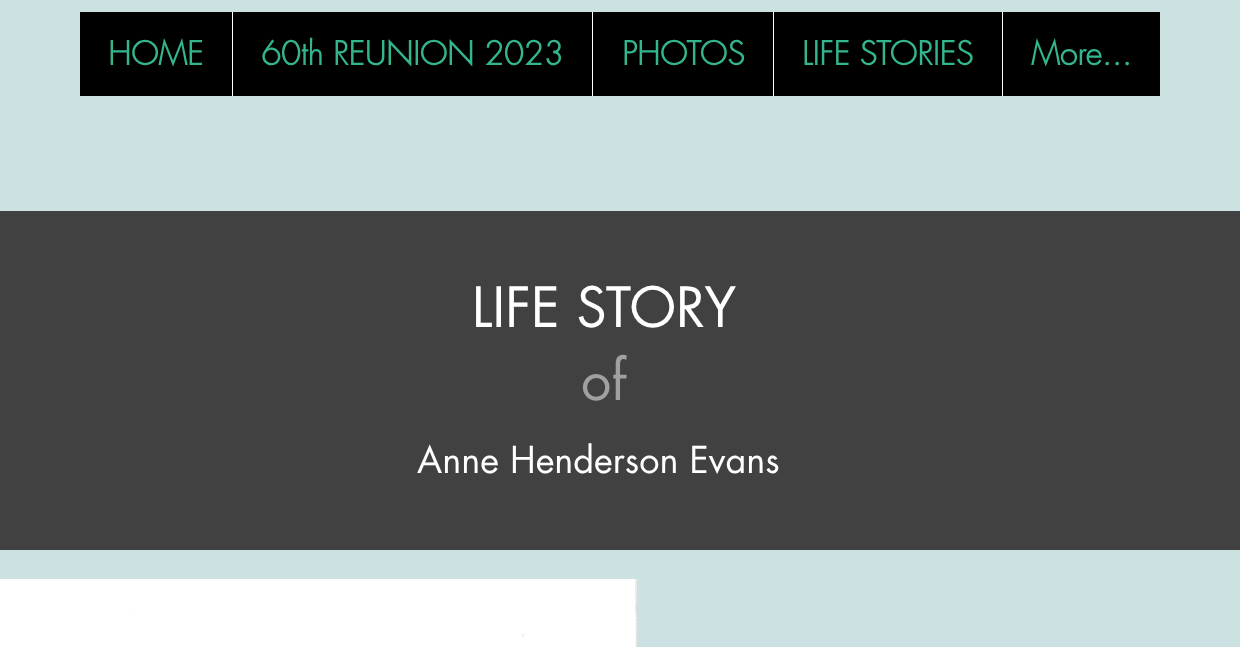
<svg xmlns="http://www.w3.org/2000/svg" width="1240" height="647">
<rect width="100%" height="100%" fill="#cce2e2"/>
<rect x="80" y="12" width="1080" height="84" fill="#000"/>
<text x="108" y="65" style="font-family:futura;font-size:32px;font-weight:bold;fill:#33b58e">HOME</text>
<rect x="232" y="12" width="1" height="84" fill="#fff"/>
<text x="261" y="65" style="font-family:futura;font-size:32px;font-weight:bold;fill:#33b58e">60th REUNION 2023</text>
<rect x="592" y="12" width="1" height="84" fill="#fff"/>
<text x="622" y="65" style="font-family:futura;font-size:32px;font-weight:bold;fill:#33b58e">PHOTOS</text>
<rect x="773" y="12" width="1" height="84" fill="#fff"/>
<text x="802" y="65" style="font-family:futura;font-size:32px;font-weight:bold;fill:#33b58e">LIFE STORIES</text>
<rect x="1002" y="12" width="1" height="84" fill="#fff"/>
<text x="1031" y="65" style="font-family:futura;font-size:32px;font-weight:bold;fill:#33b58e">More...</text>
<rect y="211" width="1240" height="339" fill="#424141"/>
<text x="472" y="327" style="font-family:futura;font-size:54px;fill:#fff">LIFE STORY</text>
<text x="581" y="400" style="font-family:futura;font-size:54px;fill:#a0a09f">of</text>
<text x="417" y="473" style="font-family:futura;font-size:36px;fill:#fff">Anne Henderson Evans</text>
<image x="0" y="579" width="637" height="68" href="media/1.png"/>
</svg>
